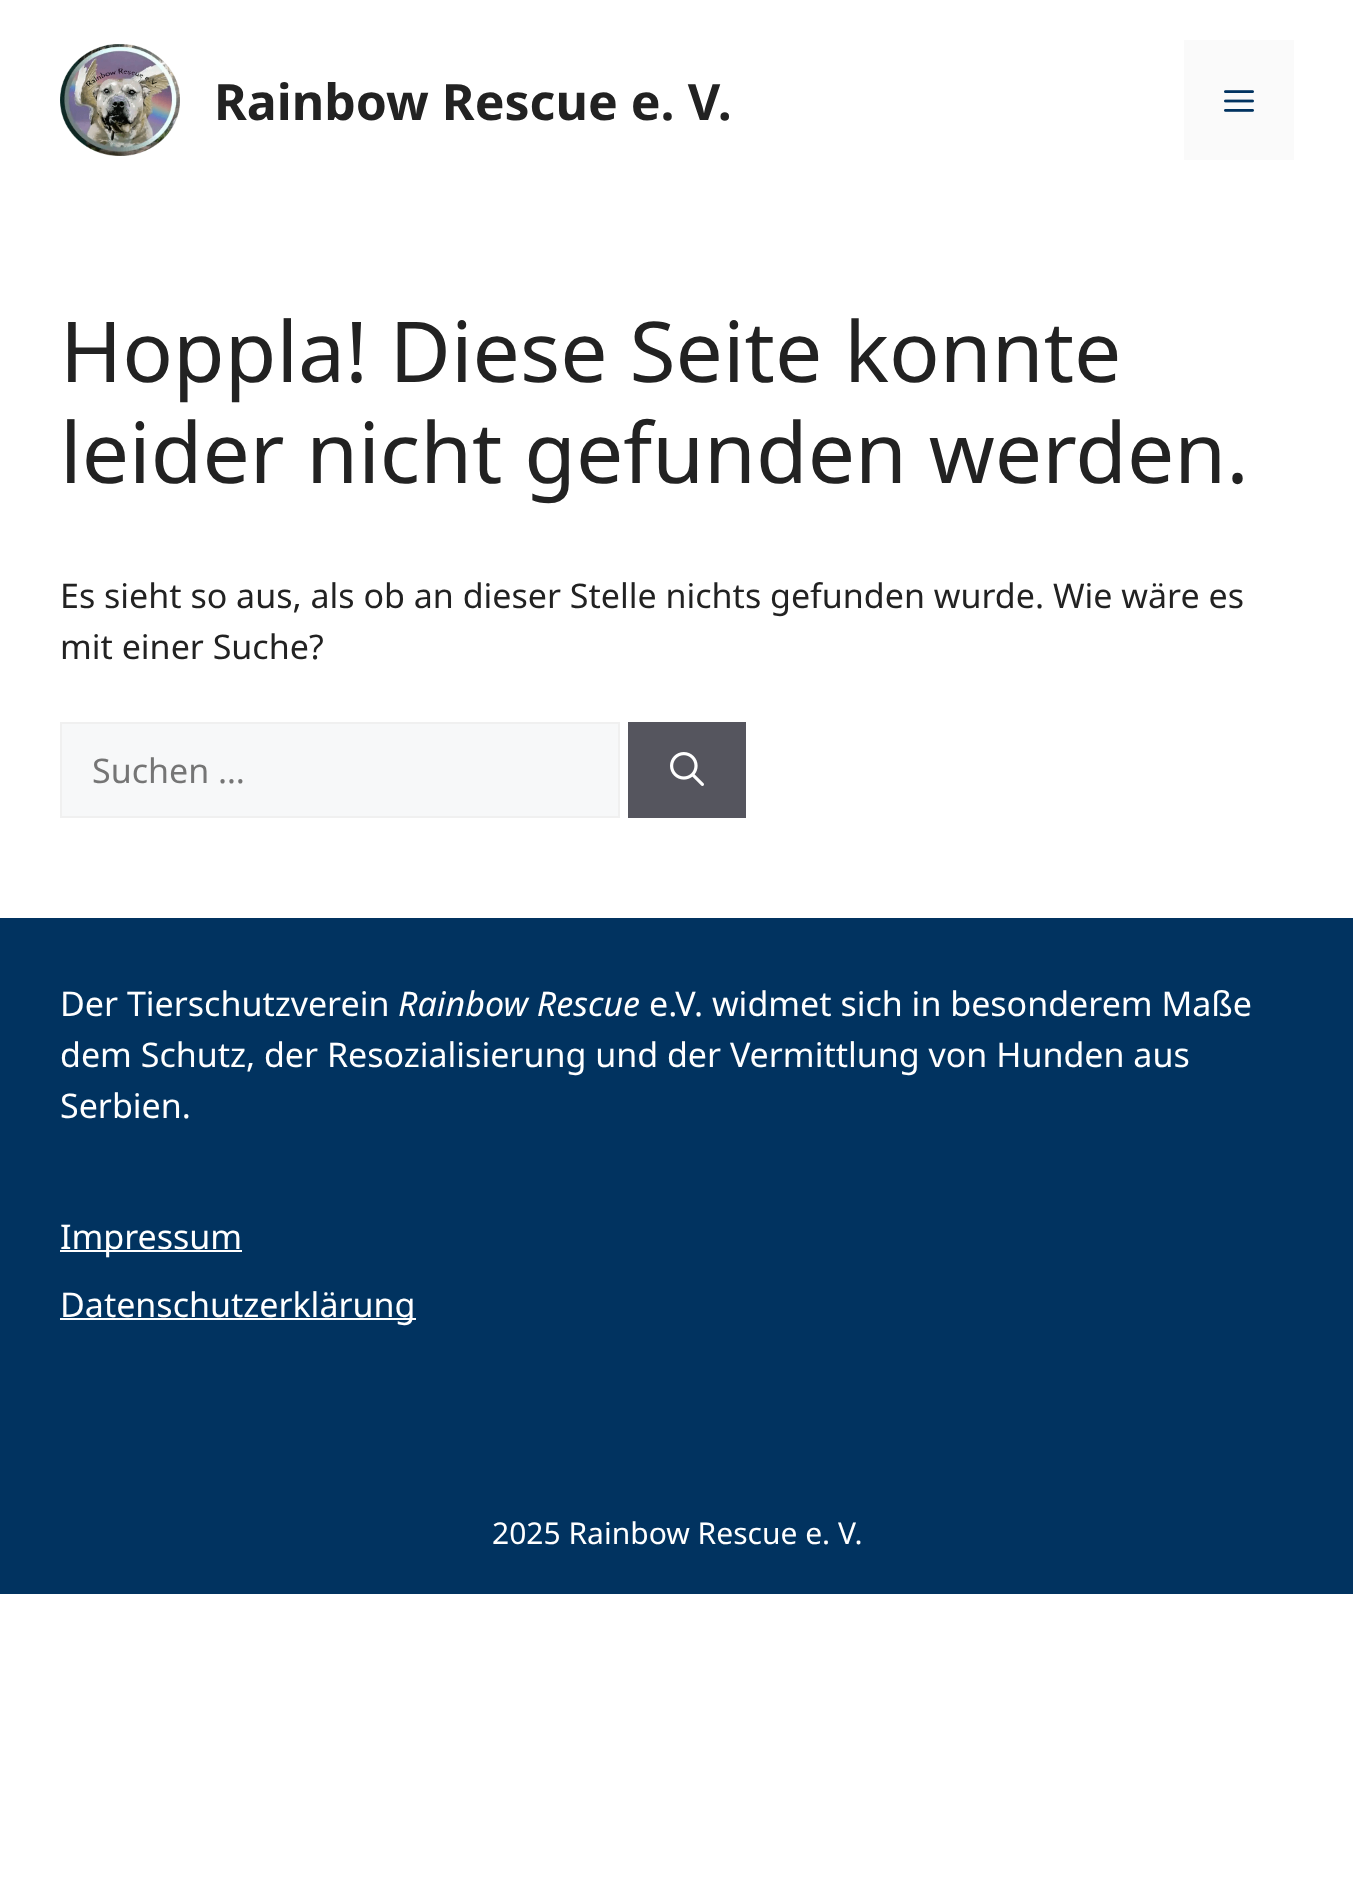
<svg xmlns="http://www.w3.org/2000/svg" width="1353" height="1885">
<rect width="100%" height="100%" fill="#fff"/>
<image x="60" y="44" width="120" height="112" href="media/1.png"/>
<text x="214" y="120" style="font-family:Noto Sans;font-size:50px;font-weight:bold;fill:#222">Rainbow Rescue e. V.</text>
<rect x="1184" y="40" width="110" height="120" fill="#fafafa"/>
<image x="1224" y="90" width="30" height="22" href="media/2.png"/>
<text x="60" y="382" style="font-family:Noto Sans;font-size:84px;fill:#222">Hoppla! Diese Seite konnte</text>
<text x="60" y="483" style="font-family:Noto Sans;font-size:84px;fill:#222">leider nicht gefunden werden.</text>
<text x="60" y="608" style="font-family:Noto Sans;font-size:34px;fill:#222">Es sieht so aus, als ob an dieser Stelle nichts gefunden wurde. Wie wäre es</text>
<text x="60" y="659" style="font-family:Noto Sans;font-size:34px;fill:#222">mit einer Suche?</text>
<rect x="61" y="723" width="558" height="94" fill="#f7f8f9" stroke="#f0f0f0" stroke-width="2"/>
<text x="92" y="783" style="font-family:Noto Sans;font-size:34px;fill:#757575">Suchen …</text>
<rect x="628" y="722" width="118" height="96" fill="#55555e"/>
<image x="670" y="752" width="34" height="34" href="media/3.png"/>
<rect y="918" width="1353" height="676" fill="#013360"/>
<text x="60" y="1016" style="font-family:Noto Sans;font-size:34px;fill:#fff">Der Tierschutzverein</text>
<text x="398" y="1016" style="font-family:Noto Sans;font-size:34px;font-style:italic;fill:#fff">Rainbow Rescue</text>
<text x="649" y="1016" style="font-family:Noto Sans;font-size:34px;fill:#fff">e.V. widmet sich in besonderem Maße</text>
<text x="60" y="1067" style="font-family:Noto Sans;font-size:34px;fill:#fff">dem Schutz, der Resozialisierung und der Vermittlung von Hunden aus</text>
<text x="60" y="1118" style="font-family:Noto Sans;font-size:34px;fill:#fff">Serbien.</text>
<rect x="60" y="1250" width="182" height="2" fill="#fff"/>
<text x="60" y="1249" style="font-family:Noto Sans;font-size:34px;fill:#fff">Impressum</text>
<rect x="60" y="1318" width="356" height="2" fill="#fff"/>
<text x="60" y="1317" style="font-family:Noto Sans;font-size:34px;fill:#fff">Datenschutzerklärung</text>
<text x="492" y="1544" style="font-family:Noto Sans;font-size:30px;fill:#fff">2025 Rainbow Rescue e. V.</text>
</svg>
